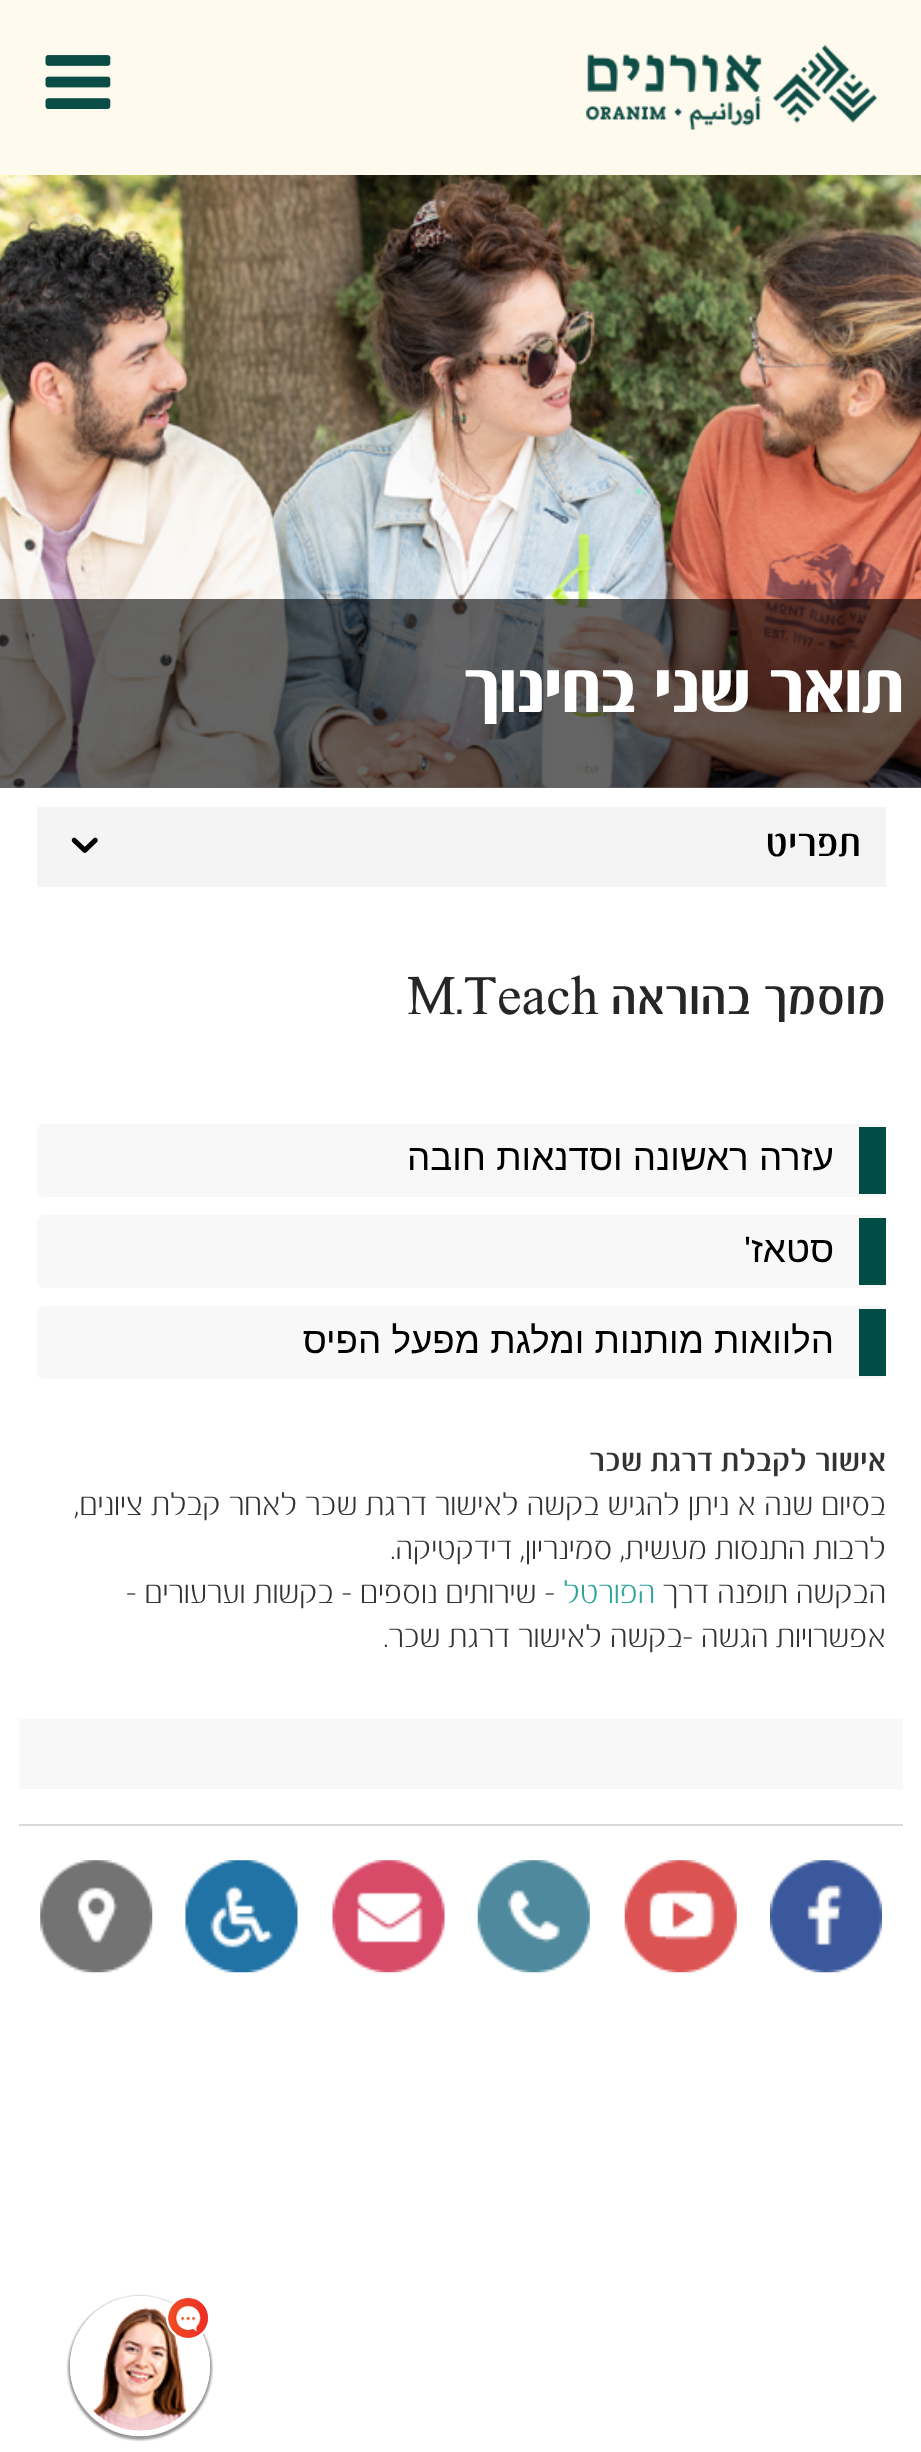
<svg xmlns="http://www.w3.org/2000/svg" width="921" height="2452">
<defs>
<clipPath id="clip1"><path d="M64 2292h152v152h-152zm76 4c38.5 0 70 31.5 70 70c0 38.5-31.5 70-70 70c-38.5 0-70-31.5-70-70c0-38.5 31.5-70 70-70z" clip-rule="evenodd"/></clipPath>
</defs>
<rect width="100%" height="100%" fill="#fff"/>
<rect width="921" height="175" fill="#fffaee"/>
<image x="586" y="45" width="291" height="85" href="media/1.png"/>
<image x="45" y="55" width="66" height="54" href="media/2.png"/>
<image x="0" y="175" width="921" height="613" href="media/3.png"/>
<rect y="599" width="921" height="189" fill="#00000099"/>
<text x="904" y="712" style="font-family:'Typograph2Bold';font-size:84px;font-weight:bold;direction:rtl;fill:#fff">תואר שני בחינוך</text>
<rect x="37" y="807" width="849" height="80" fill="#f4f4f4"/>
<text x="861" y="856" style="font-family:'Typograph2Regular';font-size:45px;direction:rtl;fill:#000">תפריט</text>
<image x="71" y="837" width="27" height="16" href="media/4.png"/>
<text x="886" y="1014" style="font-family:'Typograph2Regular';font-size:56px;direction:rtl;fill:#262626">מוסמך בהוראה</text>
<text x="407" y="1014" style="font-family:'Typograph2Regular';font-size:56px;fill:#262626">M.Teach</text>
<rect x="37" y="1124" width="849" height="73" rx="7" fill="#f8f8f8"/>
<rect x="859" y="1127" width="27" height="67" fill="#004d46"/>
<text x="834" y="1170" style="font-family:Liberation Sans;font-size:36.75px;direction:rtl;fill:#000">עזרה ראשונה וסדנאות חובה</text>
<rect x="37" y="1215" width="849" height="73" rx="7" fill="#f8f8f8"/>
<rect x="859" y="1218" width="27" height="67" fill="#004d46"/>
<text x="834" y="1262" style="font-family:Liberation Sans;font-size:36.75px;direction:rtl;fill:#000">סטאז'</text>
<rect x="37" y="1306" width="849" height="73" rx="7" fill="#f8f8f8"/>
<rect x="859" y="1309" width="27" height="67" fill="#004d46"/>
<text x="834" y="1353" style="font-family:Liberation Sans;font-size:36.75px;direction:rtl;fill:#000">הלוואות מותנות ומלגת מפעל הפיס</text>
<text x="886" y="1471" style="font-family:'Typograph2Regular';font-size:36.75px;direction:rtl;fill:#333">אישור לקבלת דרגת שכר</text>
<text x="886" y="1515" style="font-family:'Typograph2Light';font-size:36.75px;direction:rtl;fill:#333">בסיום שנה א ניתן להגיש בקשה לאישור דרגת שכר לאחר קבלת ציונים,</text>
<text x="886" y="1559" style="font-family:'Typograph2Light';font-size:36.75px;direction:rtl;fill:#333">לרבות התנסות מעשית, סמינריון, דידקטיקה.</text>
<text x="886" y="1603" style="font-family:'Typograph2Light';font-size:36.75px;direction:rtl;fill:#333">הבקשה תופנה דרך</text>
<text x="655" y="1603" style="font-family:'Typograph2Light';font-size:36.75px;direction:rtl;fill:#2ca59a">הפורטל</text>
<text x="555" y="1603" style="font-family:'Typograph2Light';font-size:36.75px;direction:rtl;fill:#333">- שירותים נוספים - בקשות וערעורים -</text>
<text x="886" y="1647" style="font-family:'Typograph2Light';font-size:36.75px;direction:rtl;fill:#333">אפשרויות הגשה -בקשה לאישור דרגת שכר.</text>
<rect x="19" y="1719" width="884" height="70" fill="#f8f8f8"/>
<rect x="19" y="1824" width="884" height="2" fill="#dadada"/>
<image x="770" y="1860" width="112" height="113" href="media/5.png"/>
<image x="624" y="1860" width="113" height="113" href="media/6.png"/>
<image x="477" y="1860" width="113" height="113" href="media/7.png"/>
<image x="332" y="1860" width="113" height="113" href="media/8.png"/>
<image x="185" y="1860" width="113" height="113" href="media/9.png"/>
<image x="40" y="1860" width="113" height="113" href="media/10.png"/>
<g clip-path="url(#clip1)">
<rect x="68" y="2296" width="144" height="144" rx="72" fill="#00000066" filter="blur(1px)"/>
</g>
<circle cx="140" cy="2366" r="67.5" fill="none" stroke="#fff" stroke-width="5"/>
<image x="93" y="2307" width="94" height="124" href="media/11.png"/>
<circle cx="188" cy="2318" r="21" fill="#fff" stroke="#fff" stroke-width="2"/>
<image x="168" y="2297" width="41" height="41" href="media/12.png"/>
</svg>
